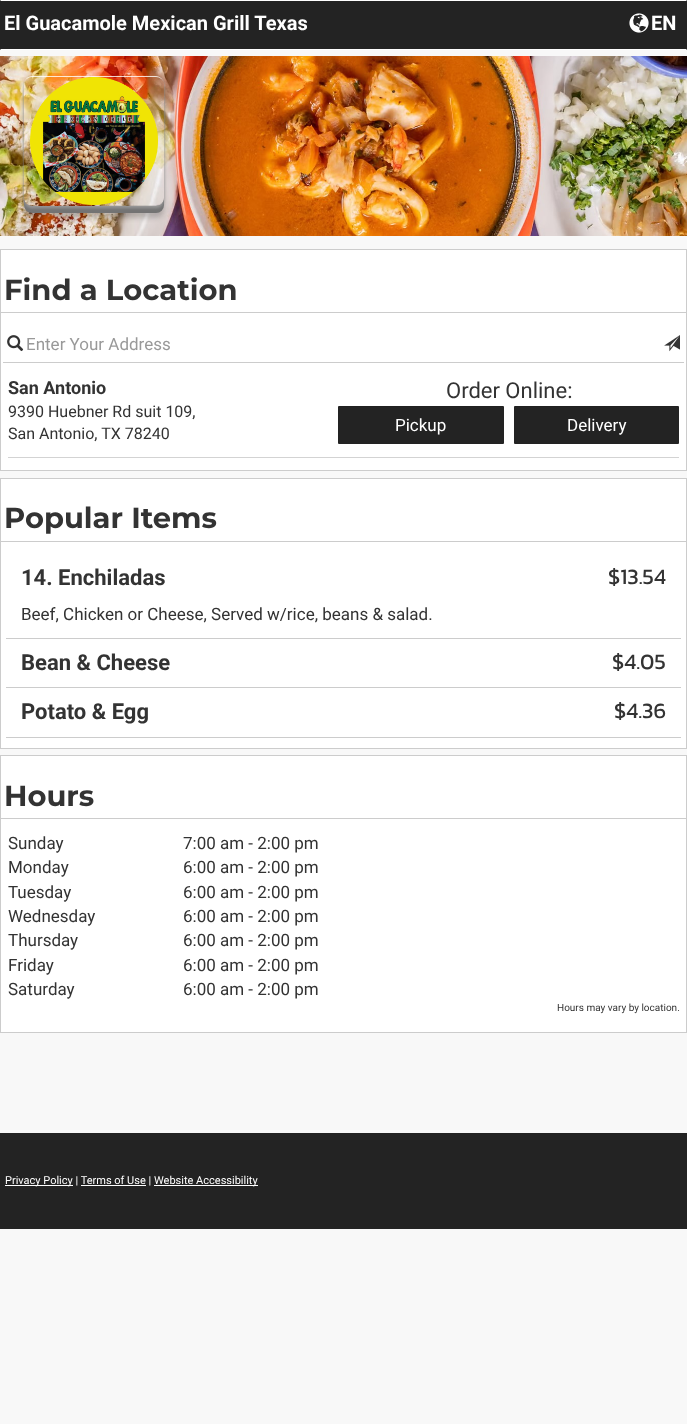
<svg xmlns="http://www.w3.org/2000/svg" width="687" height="1424">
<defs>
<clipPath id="clip1"><path d="M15 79h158v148h-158zm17-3h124c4.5 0 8 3.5 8 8v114c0 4.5-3.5 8-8 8h-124c-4.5 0-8-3.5-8-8v-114c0-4.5 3.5-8 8-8z" clip-rule="evenodd"/></clipPath>
<clipPath id="clip2"><path d="M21 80h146v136h-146zm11-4h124c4.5 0 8 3.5 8 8v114c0 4.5-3.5 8-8 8h-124c-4.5 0-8-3.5-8-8v-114c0-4.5 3.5-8 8-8z" clip-rule="evenodd"/></clipPath>
<clipPath id="clip3"><path d="M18 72h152v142h-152zm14 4h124c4.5 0 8 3.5 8 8v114c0 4.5-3.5 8-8 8h-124c-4.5 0-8-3.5-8-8v-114c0-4.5 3.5-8 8-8z" clip-rule="evenodd"/></clipPath>
</defs>
<rect width="100%" height="100%" fill="#f8f8f8"/>
<rect width="687" height="50" fill="#232323"/>
<path d="M0 0h687l-1 1h-685z" fill="#fff"/>
<path d="M687 50h-687l1-1h685z" fill="#fff"/>
<text x="4" y="30" style="font-family:Roboto;font-size:20px;font-weight:bold;fill:#fff">El Guacamole Mexican Grill Texas</text>
<image x="629" y="13" width="20" height="20" href="media/1.png"/>
<text x="651" y="30" style="font-family:Roboto;font-size:20px;font-weight:bold;fill:#fff">EN</text>
<image x="0" y="56" width="687" height="180" href="media/2.png"/>
<g clip-path="url(#clip1)">
<rect x="24" y="88" width="140" height="130" rx="8" fill="#00000033" filter="blur(2.5px)"/>
</g>
<g clip-path="url(#clip2)">
<rect x="24" y="83" width="140" height="130" rx="8" fill="#737373" filter="blur(0.5px)"/>
</g>
<g clip-path="url(#clip3)">
<rect x="24" y="78" width="140" height="130" rx="8" fill="#999" filter="blur(1.5px)"/>
</g>
<image x="30" y="77" width="128" height="128" href="media/3.png"/>
<path d="M32 76c-4 0-8 4-8 8c0-4 4-7 8-7h124c4 0 8 3 8 7c0-4-4-8-8-8z" fill="#ffffffcc"/>
<path d="M156 206c4 0 8-4 8-8c0 4-4 7-8 7h-124c-4 0-8-3-8-7c0 4 4 8 8 8z" fill="#0000001a"/>
<rect x="0.5" y="249.5" width="686" height="221" fill="#fff" stroke="#ccc"/>
<rect x="1" y="312" width="685" height="1" fill="#ccc"/>
<text x="4" y="300" style="font-family:Montserrat;font-size:29px;font-weight:bold;fill:#333">Find a Location</text>
<image x="7" y="335" width="17" height="17" href="media/4.png"/>
<rect x="3" y="362" width="681" height="1" fill="#ccc"/>
<text x="26" y="350" style="font-family:Roboto;font-size:17px;fill:#999">Enter Your Address</text>
<image x="664" y="335" width="16" height="17" href="media/5.png"/>
<rect x="8" y="457" width="671" height="1" fill="#d3d3d3"/>
<text x="8" y="394" style="font-family:Roboto;font-size:18px;font-weight:bold;fill:#333">San Antonio</text>
<text x="8" y="417" style="font-family:Roboto;font-size:16px;fill:#333">9390 Huebner Rd suit 109,</text>
<text x="8" y="439" style="font-family:Roboto;font-size:16px;fill:#333">San Antonio, TX 78240</text>
<text x="446" y="398" style="font-family:Roboto;font-size:22px;fill:#333">Order Online:</text>
<rect x="338" y="406" width="166" height="38" rx="1" fill="#232323"/>
<path d="M339 407h164c1 0 1 0 1 1c0-1 0-2-1-2h-164c-1 0-1 1-1 2c0-1 0-1 1-1z" fill="#00000012"/>
<text x="395" y="431" style="font-family:Roboto;font-size:17px;fill:#fff">Pickup</text>
<rect x="514" y="406" width="165" height="38" rx="1" fill="#232323"/>
<path d="M515 407h163c1 0 1 0 1 1c0-1 0-2-1-2h-164v2c0-1 0-1 1-1z" fill="#00000012"/>
<text x="567" y="431" style="font-family:Roboto;font-size:17px;fill:#fff">Delivery</text>
<rect x="0.5" y="478.5" width="686" height="270" fill="#fff" stroke="#ccc"/>
<rect x="1" y="541" width="685" height="1" fill="#ccc"/>
<text x="4" y="528" style="font-family:Montserrat;font-size:29px;font-weight:bold;fill:#333">Popular Items</text>
<rect x="6" y="638" width="675" height="1" fill="#ccc"/>
<text x="21" y="585" style="font-family:Roboto;font-size:22px;font-weight:bold;fill:#333">14. Enchiladas</text>
<text x="608" y="584" style="font-family:Kanit;font-size:22px;fill:#333">$13.54</text>
<text x="21" y="620" style="font-family:Roboto;font-size:17px;fill:#333">Beef, Chicken or Cheese, Served w/rice, beans &amp; salad.</text>
<rect x="6" y="687" width="675" height="1" fill="#ccc"/>
<text x="21" y="670" style="font-family:Roboto;font-size:22px;font-weight:bold;fill:#333">Bean &amp; Cheese</text>
<text x="612" y="669" style="font-family:Kanit;font-size:22px;fill:#333">$4.05</text>
<rect x="6" y="737" width="675" height="1" fill="#ccc"/>
<text x="21" y="719" style="font-family:Roboto;font-size:22px;font-weight:bold;fill:#333">Potato &amp; Egg</text>
<text x="614" y="718" style="font-family:Kanit;font-size:22px;fill:#333">$4.36</text>
<rect x="0.5" y="755.5" width="686" height="277" fill="#fff" stroke="#ccc"/>
<rect x="1" y="818" width="685" height="1" fill="#ccc"/>
<text x="4" y="806" style="font-family:Montserrat;font-size:29px;font-weight:bold;fill:#333">Hours</text>
<text x="8" y="849" style="font-family:Roboto;font-size:17px;fill:#333">Sunday</text>
<text x="183" y="849" style="font-family:Roboto;font-size:17px;fill:#333">7:00 am - 2:00 pm</text>
<text x="8" y="873" style="font-family:Roboto;font-size:17px;fill:#333">Monday</text>
<text x="183" y="873" style="font-family:Roboto;font-size:17px;fill:#333">6:00 am - 2:00 pm</text>
<text x="8" y="898" style="font-family:Roboto;font-size:17px;fill:#333">Tuesday</text>
<text x="183" y="898" style="font-family:Roboto;font-size:17px;fill:#333">6:00 am - 2:00 pm</text>
<text x="8" y="922" style="font-family:Roboto;font-size:17px;fill:#333">Wednesday</text>
<text x="183" y="922" style="font-family:Roboto;font-size:17px;fill:#333">6:00 am - 2:00 pm</text>
<text x="8" y="946" style="font-family:Roboto;font-size:17px;fill:#333">Thursday</text>
<text x="183" y="946" style="font-family:Roboto;font-size:17px;fill:#333">6:00 am - 2:00 pm</text>
<text x="8" y="971" style="font-family:Roboto;font-size:17px;fill:#333">Friday</text>
<text x="183" y="971" style="font-family:Roboto;font-size:17px;fill:#333">6:00 am - 2:00 pm</text>
<text x="8" y="995" style="font-family:Roboto;font-size:17px;fill:#333">Saturday</text>
<text x="183" y="995" style="font-family:Roboto;font-size:17px;fill:#333">6:00 am - 2:00 pm</text>
<text x="557" y="1011" style="font-family:Roboto;font-size:10px;fill:#333">Hours may vary by location.</text>
<rect y="1133" width="687" height="96" fill="#232323"/>
<rect x="5" y="1185" width="68" height="1" fill="#fff"/>
<text x="5" y="1184" style="font-family:Roboto;font-size:11px;fill:#fff">Privacy Policy | Terms of Use |</text>
<rect x="154" y="1185" width="104" height="1" fill="#fff"/>
<text x="154" y="1184" style="font-family:Roboto;font-size:11px;fill:#fff">Website Accessibility</text>
<rect x="81" y="1185" width="65" height="1" fill="#fff"/>
</svg>
